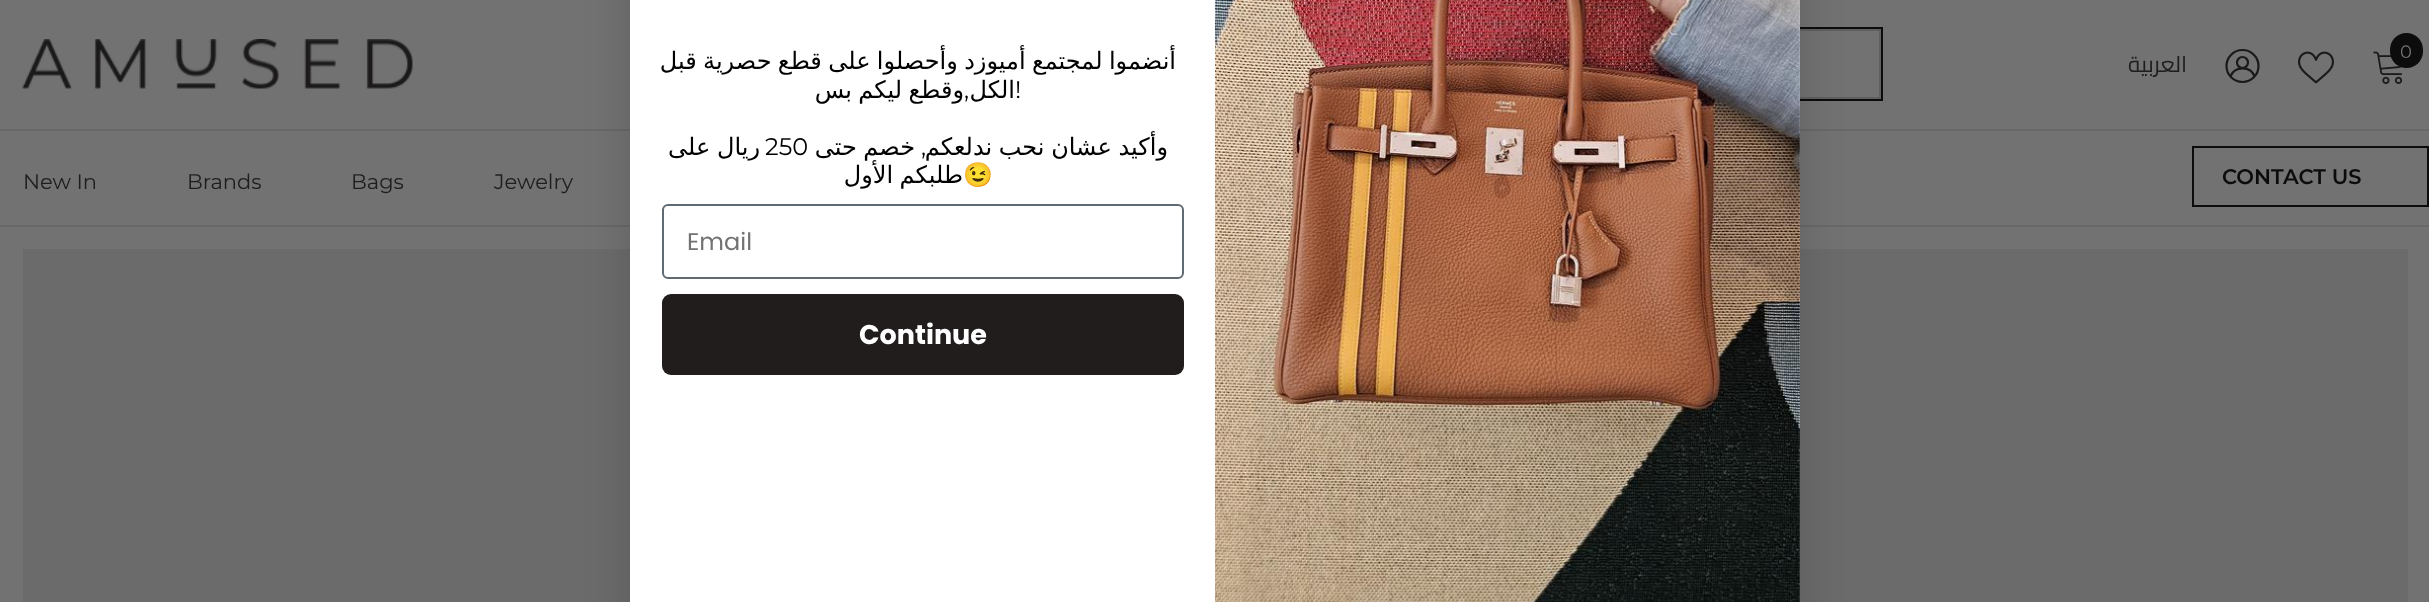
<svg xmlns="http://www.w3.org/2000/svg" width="2429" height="602">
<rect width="100%" height="100%" fill="#727272"/>
<image x="2373" y="51" width="30" height="33" href="media/1.png"/>
<rect x="2390" y="33" width="33" height="35" rx="16.5" fill="#0c0c0c"/>
<text x="2400" y="58" style="font-family:Montserrat;font-size:18px;font-weight:100;fill:#727272">0</text>
<image x="2298" y="51" width="36" height="33" href="media/2.png"/>
<circle cx="2242.5" cy="66" r="16" fill="none" stroke="#1a1a1a" stroke-width="2.2"/>
<circle cx="2242.5" cy="62.5" r="5.5" fill="none" stroke="#1a1a1a" stroke-width="2.2"/>
<path d="M2230.5 76c4.5-10 19.5-10.5 24 0" fill="none" stroke="#1a1a1a" stroke-width="2.2" stroke-linecap="round" stroke-linejoin="round"/>
<text x="2187" y="72" style="font-family:Cairo;font-size:22.5px;direction:rtl;fill:#1e1e1e">العربية</text>
<rect x="669" y="28" width="1213" height="72" fill="none" stroke="#0c0c0c" stroke-width="2"/>
<rect x="670" y="30" width="1210" height="68" fill="none" stroke="#616060" stroke-width="2"/>
<image x="22" y="39" width="391" height="50" href="media/3.png"/>
<rect y="129" width="2429" height="2" fill="#686868"/>
<rect y="225" width="2429" height="2" fill="#686868"/>
<rect x="2193" y="147" width="235" height="59" fill="none" stroke="#0c0c0c" stroke-width="2"/>
<text x="2222" y="184" style="font-family:Montserrat;font-size:21px;font-weight:600;fill:#0c0c0c">CONTACT US</text>
<text x="494" y="189" style="font-family:Montserrat;font-size:21px;font-weight:100;fill:#1e1e1e">Jewelry</text>
<text x="351" y="189" style="font-family:Montserrat;font-size:21px;font-weight:100;fill:#1e1e1e">Bags</text>
<text x="187" y="189" style="font-family:Montserrat;font-size:21px;font-weight:100;fill:#1e1e1e">Brands</text>
<text x="23" y="189" style="font-family:Montserrat;font-size:21px;font-weight:100;fill:#1e1e1e">New In</text>
<rect x="23" y="249" width="2385" height="353" fill="#6b6b6b"/>
<rect x="630" y="-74" width="1170" height="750" rx="6" fill="#00000026" filter="blur(22.5px)"/>
<rect x="630" width="1170" height="602" fill="#fff"/>
<image x="1215" y="0" width="585" height="602" href="media/4.png"/>
<text x="1176" y="69" word-spacing="-1.25" style="font-family:DejaVu Sans;font-size:24px;direction:rtl;fill:#000">أنضموا لمجتمع أميوزد وأحصلوا على قطع حصرية قبل</text>
<text x="1015" y="98" style="font-family:Montserrat;font-size:24px;font-weight:100;fill:#000">!</text>
<text x="1015" y="98" style="font-family:DejaVu Sans;font-size:24px;direction:rtl;fill:#000">الكل</text>
<text x="969" y="98" style="font-family:Montserrat;font-size:24px;font-weight:100;direction:rtl;fill:#000">,</text>
<text x="964" y="98" word-spacing="-1.25" style="font-family:DejaVu Sans;font-size:24px;direction:rtl;fill:#000">وقطع ليكم بس</text>
<text x="1168" y="155" word-spacing="-1" style="font-family:DejaVu Sans;font-size:24px;direction:rtl;fill:#000">وأكيد عشان نحب ندلعكم</text>
<text x="926" y="155" style="font-family:Montserrat;font-size:24px;font-weight:100;direction:rtl;fill:#000">,</text>
<text x="915" y="155" word-spacing="-1" style="font-family:DejaVu Sans;font-size:24px;direction:rtl;fill:#000">خصم حتى</text>
<text x="765" y="155" style="font-family:Montserrat;font-size:24px;font-weight:100;fill:#000">250</text>
<text x="760" y="155" word-spacing="-1" style="font-family:DejaVu Sans;font-size:24px;direction:rtl;fill:#000">ريال على</text>
<text x="963" y="183" style="font-family:Noto Color Emoji;font-size:24px;fill:#000">😉</text>
<text x="963" y="183" word-spacing="-1.25" style="font-family:DejaVu Sans;font-size:24px;direction:rtl;fill:#000">طلبكم الأول</text>
<rect x="663" y="205" width="520" height="73" rx="5" fill="none" stroke="#606a72" stroke-width="2"/>
<text x="687" y="250" style="font-family:Poppins;font-size:24px;fill:#727272">Email</text>
<rect x="662" y="294" width="522" height="81" rx="9" fill="#211d1c"/>
<text x="859" y="344" style="font-family:Poppins;font-size:27px;font-weight:bold;fill:#fff">Continue</text>
</svg>
